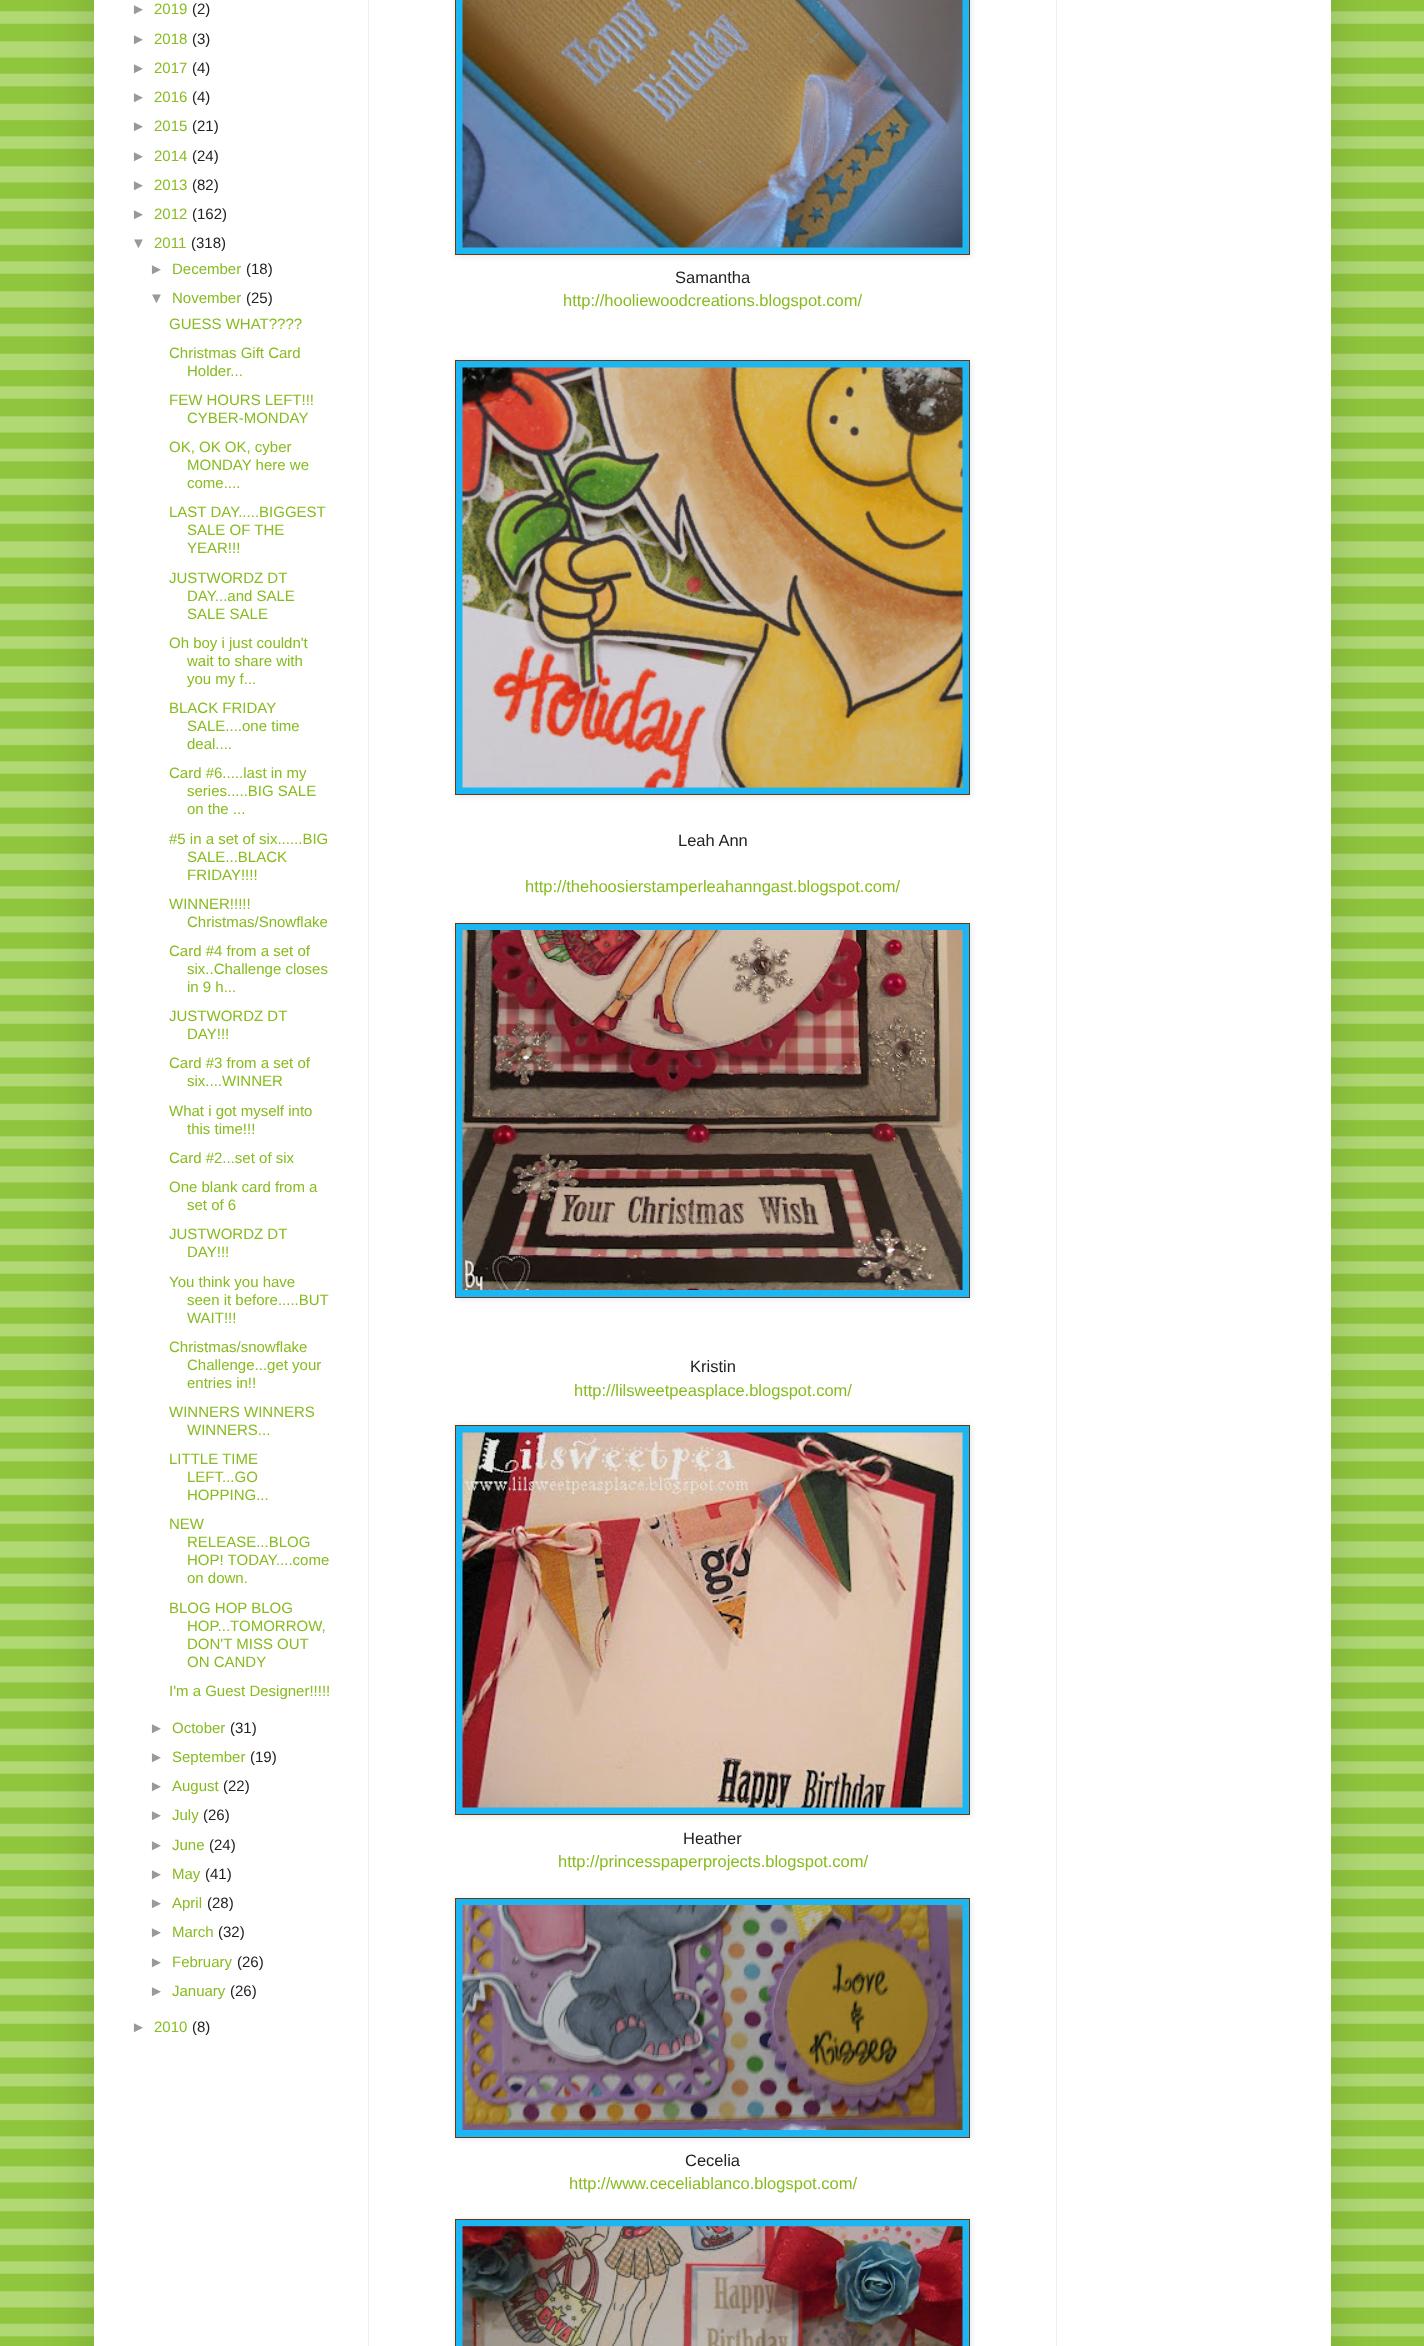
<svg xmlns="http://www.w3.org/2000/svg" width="1424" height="2346">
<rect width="100%" height="100%" fill="#fff"/>
<image x="0" y="0" width="1424" height="2346" href="media/1.png"/>
<rect x="94" y="-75" width="1237" height="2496" fill="#00000026" filter="blur(25px)"/>
<rect x="94" width="1237" height="2346" fill="#fff"/>
<rect x="368" width="1" height="2346" fill="#eee"/>
<rect x="1056" width="1" height="2346" fill="#eee"/>
<text x="131" y="14" style="font-family:Liberation Sans;font-size:15px;fill:#999">►</text>
<text x="154" y="14" style="font-family:Liberation Sans;font-size:15px;fill:#88bb21">2019</text>
<text x="192" y="14" style="font-family:Liberation Sans;font-size:15px;fill:#222">(2)</text>
<text x="131" y="44" style="font-family:Liberation Sans;font-size:15px;fill:#999">►</text>
<text x="154" y="44" style="font-family:Liberation Sans;font-size:15px;fill:#88bb21">2018</text>
<text x="192" y="44" style="font-family:Liberation Sans;font-size:15px;fill:#222">(3)</text>
<text x="131" y="73" style="font-family:Liberation Sans;font-size:15px;fill:#999">►</text>
<text x="154" y="73" style="font-family:Liberation Sans;font-size:15px;fill:#88bb21">2017</text>
<text x="192" y="73" style="font-family:Liberation Sans;font-size:15px;fill:#222">(4)</text>
<text x="131" y="102" style="font-family:Liberation Sans;font-size:15px;fill:#999">►</text>
<text x="154" y="102" style="font-family:Liberation Sans;font-size:15px;fill:#88bb21">2016</text>
<text x="192" y="102" style="font-family:Liberation Sans;font-size:15px;fill:#222">(4)</text>
<text x="131" y="131" style="font-family:Liberation Sans;font-size:15px;fill:#999">►</text>
<text x="154" y="131" style="font-family:Liberation Sans;font-size:15px;fill:#88bb21">2015</text>
<text x="192" y="131" style="font-family:Liberation Sans;font-size:15px;fill:#222">(21)</text>
<text x="131" y="161" style="font-family:Liberation Sans;font-size:15px;fill:#999">►</text>
<text x="154" y="161" style="font-family:Liberation Sans;font-size:15px;fill:#88bb21">2014</text>
<text x="192" y="161" style="font-family:Liberation Sans;font-size:15px;fill:#222">(24)</text>
<text x="131" y="190" style="font-family:Liberation Sans;font-size:15px;fill:#999">►</text>
<text x="154" y="190" style="font-family:Liberation Sans;font-size:15px;fill:#88bb21">2013</text>
<text x="192" y="190" style="font-family:Liberation Sans;font-size:15px;fill:#222">(82)</text>
<text x="131" y="219" style="font-family:Liberation Sans;font-size:15px;fill:#999">►</text>
<text x="154" y="219" style="font-family:Liberation Sans;font-size:15px;fill:#88bb21">2012</text>
<text x="192" y="219" style="font-family:Liberation Sans;font-size:15px;fill:#222">(162)</text>
<text x="131" y="248" style="font-family:Liberation Sans;font-size:15px;fill:#999">▼</text>
<text x="154" y="248" style="font-family:Liberation Sans;font-size:15px;fill:#88bb21">2011</text>
<text x="191" y="248" style="font-family:Liberation Sans;font-size:15px;fill:#222">(318)</text>
<text x="149" y="274" style="font-family:Liberation Sans;font-size:15px;fill:#999">►</text>
<text x="172" y="274" style="font-family:Liberation Sans;font-size:15px;fill:#88bb21">December</text>
<text x="246" y="274" style="font-family:Liberation Sans;font-size:15px;fill:#222">(18)</text>
<text x="149" y="303" style="font-family:Liberation Sans;font-size:15px;fill:#999">▼</text>
<text x="172" y="303" style="font-family:Liberation Sans;font-size:15px;fill:#88bb21">November</text>
<text x="246" y="303" style="font-family:Liberation Sans;font-size:15px;fill:#222">(25)</text>
<text x="169" y="329" style="font-family:Liberation Sans;font-size:15px;fill:#88bb21">GUESS WHAT????</text>
<text x="169" y="358" style="font-family:Liberation Sans;font-size:15px;fill:#88bb21">Christmas Gift Card</text>
<text x="187" y="376" style="font-family:Liberation Sans;font-size:15px;fill:#88bb21">Holder...</text>
<text x="169" y="405" style="font-family:Liberation Sans;font-size:15px;fill:#88bb21">FEW HOURS LEFT!!!</text>
<text x="187" y="423" style="font-family:Liberation Sans;font-size:15px;fill:#88bb21">CYBER-MONDAY</text>
<text x="169" y="452" style="font-family:Liberation Sans;font-size:15px;fill:#88bb21">OK, OK OK, cyber</text>
<text x="187" y="470" style="font-family:Liberation Sans;font-size:15px;fill:#88bb21">MONDAY here we</text>
<text x="187" y="488" style="font-family:Liberation Sans;font-size:15px;fill:#88bb21">come....</text>
<text x="169" y="517" style="font-family:Liberation Sans;font-size:15px;fill:#88bb21">LAST DAY.....BIGGEST</text>
<text x="187" y="535" style="font-family:Liberation Sans;font-size:15px;fill:#88bb21">SALE OF THE</text>
<text x="187" y="553" style="font-family:Liberation Sans;font-size:15px;fill:#88bb21">YEAR!!!</text>
<text x="169" y="583" style="font-family:Liberation Sans;font-size:15px;fill:#88bb21">JUSTWORDZ DT</text>
<text x="187" y="601" style="font-family:Liberation Sans;font-size:15px;fill:#88bb21">DAY...and SALE</text>
<text x="187" y="619" style="font-family:Liberation Sans;font-size:15px;fill:#88bb21">SALE SALE</text>
<text x="169" y="648" style="font-family:Liberation Sans;font-size:15px;fill:#88bb21">Oh boy i just couldn't</text>
<text x="187" y="666" style="font-family:Liberation Sans;font-size:15px;fill:#88bb21">wait to share with</text>
<text x="187" y="684" style="font-family:Liberation Sans;font-size:15px;fill:#88bb21">you my f...</text>
<text x="169" y="713" style="font-family:Liberation Sans;font-size:15px;fill:#88bb21">BLACK FRIDAY</text>
<text x="187" y="731" style="font-family:Liberation Sans;font-size:15px;fill:#88bb21">SALE....one time</text>
<text x="187" y="749" style="font-family:Liberation Sans;font-size:15px;fill:#88bb21">deal....</text>
<text x="169" y="778" style="font-family:Liberation Sans;font-size:15px;fill:#88bb21">Card #6.....last in my</text>
<text x="187" y="796" style="font-family:Liberation Sans;font-size:15px;fill:#88bb21">series.....BIG SALE</text>
<text x="187" y="814" style="font-family:Liberation Sans;font-size:15px;fill:#88bb21">on the ...</text>
<text x="169" y="844" style="font-family:Liberation Sans;font-size:15px;fill:#88bb21">#5 in a set of six......BIG</text>
<text x="187" y="862" style="font-family:Liberation Sans;font-size:15px;fill:#88bb21">SALE...BLACK</text>
<text x="187" y="880" style="font-family:Liberation Sans;font-size:15px;fill:#88bb21">FRIDAY!!!!</text>
<text x="169" y="909" style="font-family:Liberation Sans;font-size:15px;fill:#88bb21">WINNER!!!!!</text>
<text x="187" y="927" style="font-family:Liberation Sans;font-size:15px;fill:#88bb21">Christmas/Snowflake</text>
<text x="169" y="956" style="font-family:Liberation Sans;font-size:15px;fill:#88bb21">Card #4 from a set of</text>
<text x="187" y="974" style="font-family:Liberation Sans;font-size:15px;fill:#88bb21">six..Challenge closes</text>
<text x="187" y="992" style="font-family:Liberation Sans;font-size:15px;fill:#88bb21">in 9 h...</text>
<text x="169" y="1021" style="font-family:Liberation Sans;font-size:15px;fill:#88bb21">JUSTWORDZ DT</text>
<text x="187" y="1039" style="font-family:Liberation Sans;font-size:15px;fill:#88bb21">DAY!!!</text>
<text x="169" y="1068" style="font-family:Liberation Sans;font-size:15px;fill:#88bb21">Card #3 from a set of</text>
<text x="187" y="1086" style="font-family:Liberation Sans;font-size:15px;fill:#88bb21">six....WINNER</text>
<text x="169" y="1116" style="font-family:Liberation Sans;font-size:15px;fill:#88bb21">What i got myself into</text>
<text x="187" y="1134" style="font-family:Liberation Sans;font-size:15px;fill:#88bb21">this time!!!</text>
<text x="169" y="1163" style="font-family:Liberation Sans;font-size:15px;fill:#88bb21">Card #2...set of six</text>
<text x="169" y="1192" style="font-family:Liberation Sans;font-size:15px;fill:#88bb21">One blank card from a</text>
<text x="187" y="1210" style="font-family:Liberation Sans;font-size:15px;fill:#88bb21">set of 6</text>
<text x="169" y="1239" style="font-family:Liberation Sans;font-size:15px;fill:#88bb21">JUSTWORDZ DT</text>
<text x="187" y="1257" style="font-family:Liberation Sans;font-size:15px;fill:#88bb21">DAY!!!</text>
<text x="169" y="1287" style="font-family:Liberation Sans;font-size:15px;fill:#88bb21">You think you have</text>
<text x="187" y="1305" style="font-family:Liberation Sans;font-size:15px;fill:#88bb21">seen it before.....BUT</text>
<text x="187" y="1323" style="font-family:Liberation Sans;font-size:15px;fill:#88bb21">WAIT!!!</text>
<text x="169" y="1352" style="font-family:Liberation Sans;font-size:15px;fill:#88bb21">Christmas/snowflake</text>
<text x="187" y="1370" style="font-family:Liberation Sans;font-size:15px;fill:#88bb21">Challenge...get your</text>
<text x="187" y="1388" style="font-family:Liberation Sans;font-size:15px;fill:#88bb21">entries in!!</text>
<text x="169" y="1417" style="font-family:Liberation Sans;font-size:15px;fill:#88bb21">WINNERS WINNERS</text>
<text x="187" y="1435" style="font-family:Liberation Sans;font-size:15px;fill:#88bb21">WINNERS...</text>
<text x="169" y="1464" style="font-family:Liberation Sans;font-size:15px;fill:#88bb21">LITTLE TIME</text>
<text x="187" y="1482" style="font-family:Liberation Sans;font-size:15px;fill:#88bb21">LEFT...GO</text>
<text x="187" y="1500" style="font-family:Liberation Sans;font-size:15px;fill:#88bb21">HOPPING...</text>
<text x="169" y="1529" style="font-family:Liberation Sans;font-size:15px;fill:#88bb21">NEW</text>
<text x="187" y="1547" style="font-family:Liberation Sans;font-size:15px;fill:#88bb21">RELEASE...BLOG</text>
<text x="187" y="1565" style="font-family:Liberation Sans;font-size:15px;fill:#88bb21">HOP! TODAY....come</text>
<text x="187" y="1583" style="font-family:Liberation Sans;font-size:15px;fill:#88bb21">on down.</text>
<text x="169" y="1613" style="font-family:Liberation Sans;font-size:15px;fill:#88bb21">BLOG HOP BLOG</text>
<text x="187" y="1631" style="font-family:Liberation Sans;font-size:15px;fill:#88bb21">HOP...TOMORROW,</text>
<text x="187" y="1649" style="font-family:Liberation Sans;font-size:15px;fill:#88bb21">DON'T MISS OUT</text>
<text x="187" y="1667" style="font-family:Liberation Sans;font-size:15px;fill:#88bb21">ON CANDY</text>
<text x="169" y="1696" style="font-family:Liberation Sans;font-size:15px;fill:#88bb21">I'm a Guest Designer!!!!!</text>
<text x="149" y="1733" style="font-family:Liberation Sans;font-size:15px;fill:#999">►</text>
<text x="172" y="1733" style="font-family:Liberation Sans;font-size:15px;fill:#88bb21">October</text>
<text x="230" y="1733" style="font-family:Liberation Sans;font-size:15px;fill:#222">(31)</text>
<text x="149" y="1762" style="font-family:Liberation Sans;font-size:15px;fill:#999">►</text>
<text x="172" y="1762" style="font-family:Liberation Sans;font-size:15px;fill:#88bb21">September</text>
<text x="250" y="1762" style="font-family:Liberation Sans;font-size:15px;fill:#222">(19)</text>
<text x="149" y="1791" style="font-family:Liberation Sans;font-size:15px;fill:#999">►</text>
<text x="172" y="1791" style="font-family:Liberation Sans;font-size:15px;fill:#88bb21">August</text>
<text x="223" y="1791" style="font-family:Liberation Sans;font-size:15px;fill:#222">(22)</text>
<text x="149" y="1820" style="font-family:Liberation Sans;font-size:15px;fill:#999">►</text>
<text x="172" y="1820" style="font-family:Liberation Sans;font-size:15px;fill:#88bb21">July</text>
<text x="203" y="1820" style="font-family:Liberation Sans;font-size:15px;fill:#222">(26)</text>
<text x="149" y="1850" style="font-family:Liberation Sans;font-size:15px;fill:#999">►</text>
<text x="172" y="1850" style="font-family:Liberation Sans;font-size:15px;fill:#88bb21">June</text>
<text x="209" y="1850" style="font-family:Liberation Sans;font-size:15px;fill:#222">(24)</text>
<text x="149" y="1879" style="font-family:Liberation Sans;font-size:15px;fill:#999">►</text>
<text x="172" y="1879" style="font-family:Liberation Sans;font-size:15px;fill:#88bb21">May</text>
<text x="205" y="1879" style="font-family:Liberation Sans;font-size:15px;fill:#222">(41)</text>
<text x="149" y="1908" style="font-family:Liberation Sans;font-size:15px;fill:#999">►</text>
<text x="172" y="1908" style="font-family:Liberation Sans;font-size:15px;fill:#88bb21">April</text>
<text x="207" y="1908" style="font-family:Liberation Sans;font-size:15px;fill:#222">(28)</text>
<text x="149" y="1937" style="font-family:Liberation Sans;font-size:15px;fill:#999">►</text>
<text x="172" y="1937" style="font-family:Liberation Sans;font-size:15px;fill:#88bb21">March</text>
<text x="218" y="1937" style="font-family:Liberation Sans;font-size:15px;fill:#222">(32)</text>
<text x="149" y="1967" style="font-family:Liberation Sans;font-size:15px;fill:#999">►</text>
<text x="172" y="1967" style="font-family:Liberation Sans;font-size:15px;fill:#88bb21">February</text>
<text x="237" y="1967" style="font-family:Liberation Sans;font-size:15px;fill:#222">(26)</text>
<text x="149" y="1996" style="font-family:Liberation Sans;font-size:15px;fill:#999">►</text>
<text x="172" y="1996" style="font-family:Liberation Sans;font-size:15px;fill:#88bb21">January</text>
<text x="230" y="1996" style="font-family:Liberation Sans;font-size:15px;fill:#222">(26)</text>
<text x="131" y="2032" style="font-family:Liberation Sans;font-size:15px;fill:#999">►</text>
<text x="154" y="2032" style="font-family:Liberation Sans;font-size:15px;fill:#88bb21">2010</text>
<text x="192" y="2032" style="font-family:Liberation Sans;font-size:15px;fill:#222">(8)</text>
<rect x="456" y="-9" width="515" height="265" fill="#0000001a" filter="blur(3px)"/>
<rect x="455.5" y="-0.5" width="514" height="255" fill="#1cb6f4" stroke="#663a0c"/>
<image x="462" y="0" width="501" height="248" href="media/2.png"/>
<text x="675" y="283" style="font-family:Liberation Sans;font-size:16.5px;fill:#222">Samantha</text>
<text x="563" y="306" style="font-family:Liberation Sans;font-size:16.5px;fill:#88bb21">http://hooliewoodcreations.blogspot.com/</text>
<rect x="456" y="361" width="515" height="435" fill="#0000001a" filter="blur(3px)"/>
<rect x="455.5" y="360.5" width="514" height="434" fill="#1cb6f4" stroke="#663a0c"/>
<image x="462" y="367" width="501" height="421" href="media/3.png"/>
<text x="678" y="846" style="font-family:Liberation Sans;font-size:16.5px;fill:#222">Leah Ann</text>
<text x="525" y="892" style="font-family:Liberation Sans;font-size:16.5px;fill:#88bb21">http://thehoosierstamperleahanngast.blogspot.com/</text>
<rect x="456" y="924" width="515" height="375" fill="#0000001a" filter="blur(3px)"/>
<rect x="455.5" y="923.5" width="514" height="374" fill="#1cb6f4" stroke="#663a0c"/>
<image x="462" y="930" width="501" height="360" href="media/4.png"/>
<text x="690" y="1372" style="font-family:Liberation Sans;font-size:16.5px;fill:#222">Kristin</text>
<text x="574" y="1396" style="font-family:Liberation Sans;font-size:16.5px;fill:#88bb21">http://lilsweetpeasplace.blogspot.com/</text>
<rect x="456" y="1426" width="515" height="390" fill="#0000001a" filter="blur(3px)"/>
<rect x="455.5" y="1425.5" width="514" height="389" fill="#1cb6f4" stroke="#663a0c"/>
<image x="462" y="1432" width="501" height="376" href="media/5.png"/>
<text x="683" y="1844" style="font-family:Liberation Sans;font-size:16.5px;fill:#222">Heather</text>
<text x="558" y="1867" style="font-family:Liberation Sans;font-size:16.5px;fill:#88bb21">http://princesspaperprojects.blogspot.com/</text>
<rect x="456" y="1899" width="515" height="240" fill="#0000001a" filter="blur(3px)"/>
<rect x="455.5" y="1898.5" width="514" height="239" fill="#1cb6f4" stroke="#663a0c"/>
<image x="462" y="1905" width="501" height="225" href="media/6.png"/>
<text x="685" y="2166" style="font-family:Liberation Sans;font-size:16.5px;fill:#222">Cecelia</text>
<text x="569" y="2189" style="font-family:Liberation Sans;font-size:16.5px;fill:#88bb21">http://www.ceceliablanco.blogspot.com/</text>
<rect x="456" y="2220" width="515" height="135" fill="#0000001a" filter="blur(3px)"/>
<rect x="455.5" y="2219.5" width="514" height="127" fill="#1cb6f4" stroke="#663a0c"/>
<image x="462" y="2226" width="501" height="120" href="media/7.png"/>
</svg>
